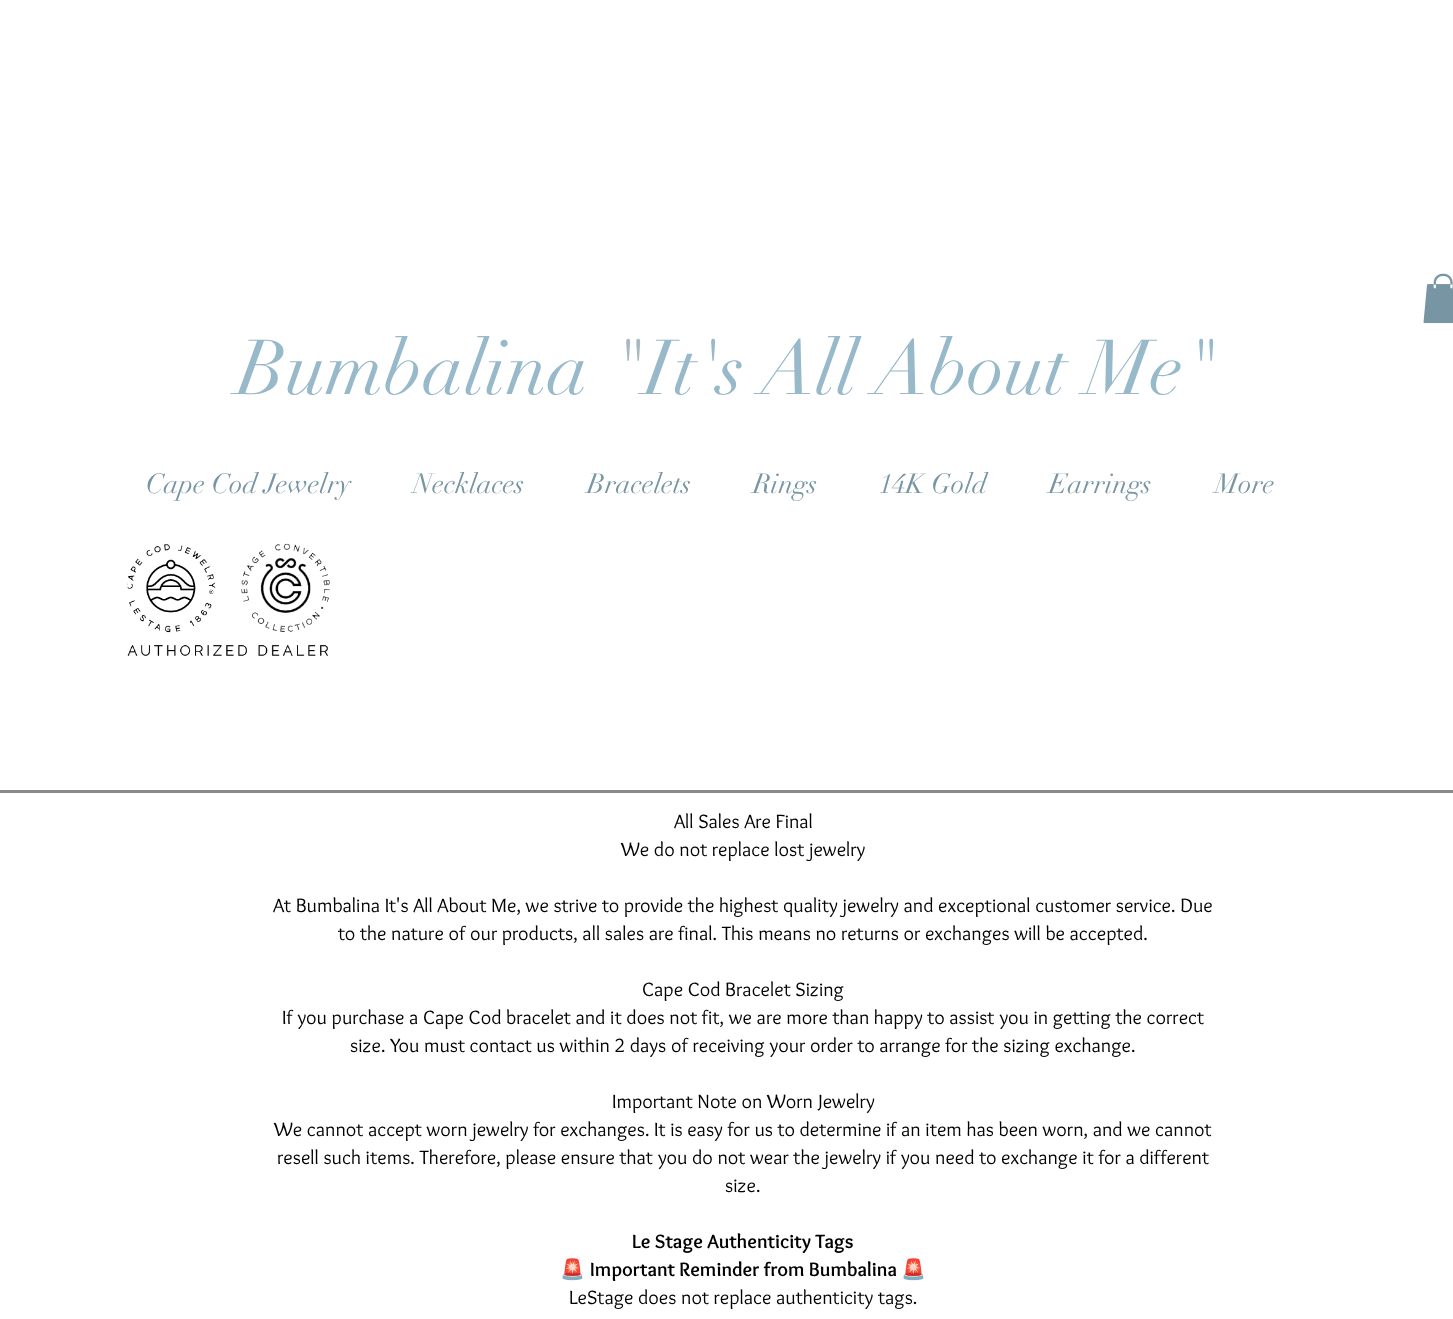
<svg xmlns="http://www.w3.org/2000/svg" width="1453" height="1319">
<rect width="100%" height="100%" fill="#fff"/>
<image x="1423" y="273" width="30" height="51" href="media/1.png"/>
<text x="237" y="394" style="font-family:didot;font-size:76.25px;fill:#97b9c9">Bumbalina</text>
<text x="610" y="394" style="font-family:didot;font-size:76.25px;fill:#a8b9c2">"</text>
<text x="644" y="394" style="font-family:didot;font-size:76.25px;fill:#97b9c9">It's All About Me"</text>
<text x="146" y="493" style="font-family:didot;font-size:27.5px;fill:#7795a3">Cape Cod Jewelry</text>
<text x="413" y="493" style="font-family:didot;font-size:27.5px;fill:#7795a3">Necklaces</text>
<text x="587" y="493" style="font-family:didot;font-size:27.5px;fill:#7795a3">Bracelets</text>
<text x="753" y="493" style="font-family:didot;font-size:27.5px;fill:#7795a3">Rings</text>
<text x="879" y="493" style="font-family:didot;font-size:27.5px;fill:#7795a3">14K Gold</text>
<text x="1049" y="493" style="font-family:didot;font-size:27.5px;fill:#7795a3">Earrings</text>
<text x="1215" y="493" style="font-family:didot;font-size:27.5px;fill:#7795a3">More</text>
<image x="127" y="543" width="203" height="113" href="media/2.png"/>
<rect y="790" width="1453" height="3" fill="#8b8a8a"/>
<text x="674" y="828" style="font-family:Overlock;font-size:20px;fill:#000">All Sales Are Final</text>
<text x="621" y="856" style="font-family:Overlock;font-size:20px;fill:#000">We do not replace lost jewelry</text>
<text x="273" y="912" style="font-family:Overlock;font-size:20px;fill:#000">At Bumbalina It's All About Me, we strive to provide the highest quality jewelry and exceptional customer service. Due</text>
<text x="338" y="940" style="font-family:Overlock;font-size:20px;fill:#000">to the nature of our products, all sales are final. This means no returns or exchanges will be accepted.</text>
<text x="642" y="996" style="font-family:Overlock;font-size:20px;fill:#000">Cape Cod Bracelet Sizing</text>
<text x="282" y="1024" style="font-family:Overlock;font-size:20px;fill:#000">If you purchase a Cape Cod bracelet and it does not fit, we are more than happy to assist you in getting the correct</text>
<text x="350" y="1052" style="font-family:Overlock;font-size:20px;fill:#000">size. You must contact us within 2 days of receiving your order to arrange for the sizing exchange.</text>
<text x="612" y="1108" style="font-family:Overlock;font-size:20px;fill:#000">Important Note on Worn Jewelry</text>
<text x="274" y="1136" style="font-family:Overlock;font-size:20px;fill:#000">We cannot accept worn jewelry for exchanges. It is easy for us to determine if an item has been worn, and we cannot</text>
<text x="277" y="1164" style="font-family:Overlock;font-size:20px;fill:#000">resell such items. Therefore, please ensure that you do not wear the jewelry if you need to exchange it for a different</text>
<text x="725" y="1192" style="font-family:Overlock;font-size:20px;fill:#000">size.</text>
<text x="632" y="1248" style="font-family:Overlock;font-size:20px;font-weight:bold;fill:#000">Le Stage Authenticity Tags</text>
<text x="560" y="1276" style="font-family:Noto Color Emoji;font-size:20px;font-weight:bold;fill:#000">🚨</text>
<text x="590" y="1276" style="font-family:Overlock;font-size:20px;font-weight:bold;fill:#000">Important Reminder from Bumbalina</text>
<text x="901" y="1276" style="font-family:Noto Color Emoji;font-size:20px;font-weight:bold;fill:#000">🚨</text>
<text x="569" y="1304" style="font-family:Overlock;font-size:20px;fill:#000">LeStage does not replace authenticity tags.</text>
</svg>
